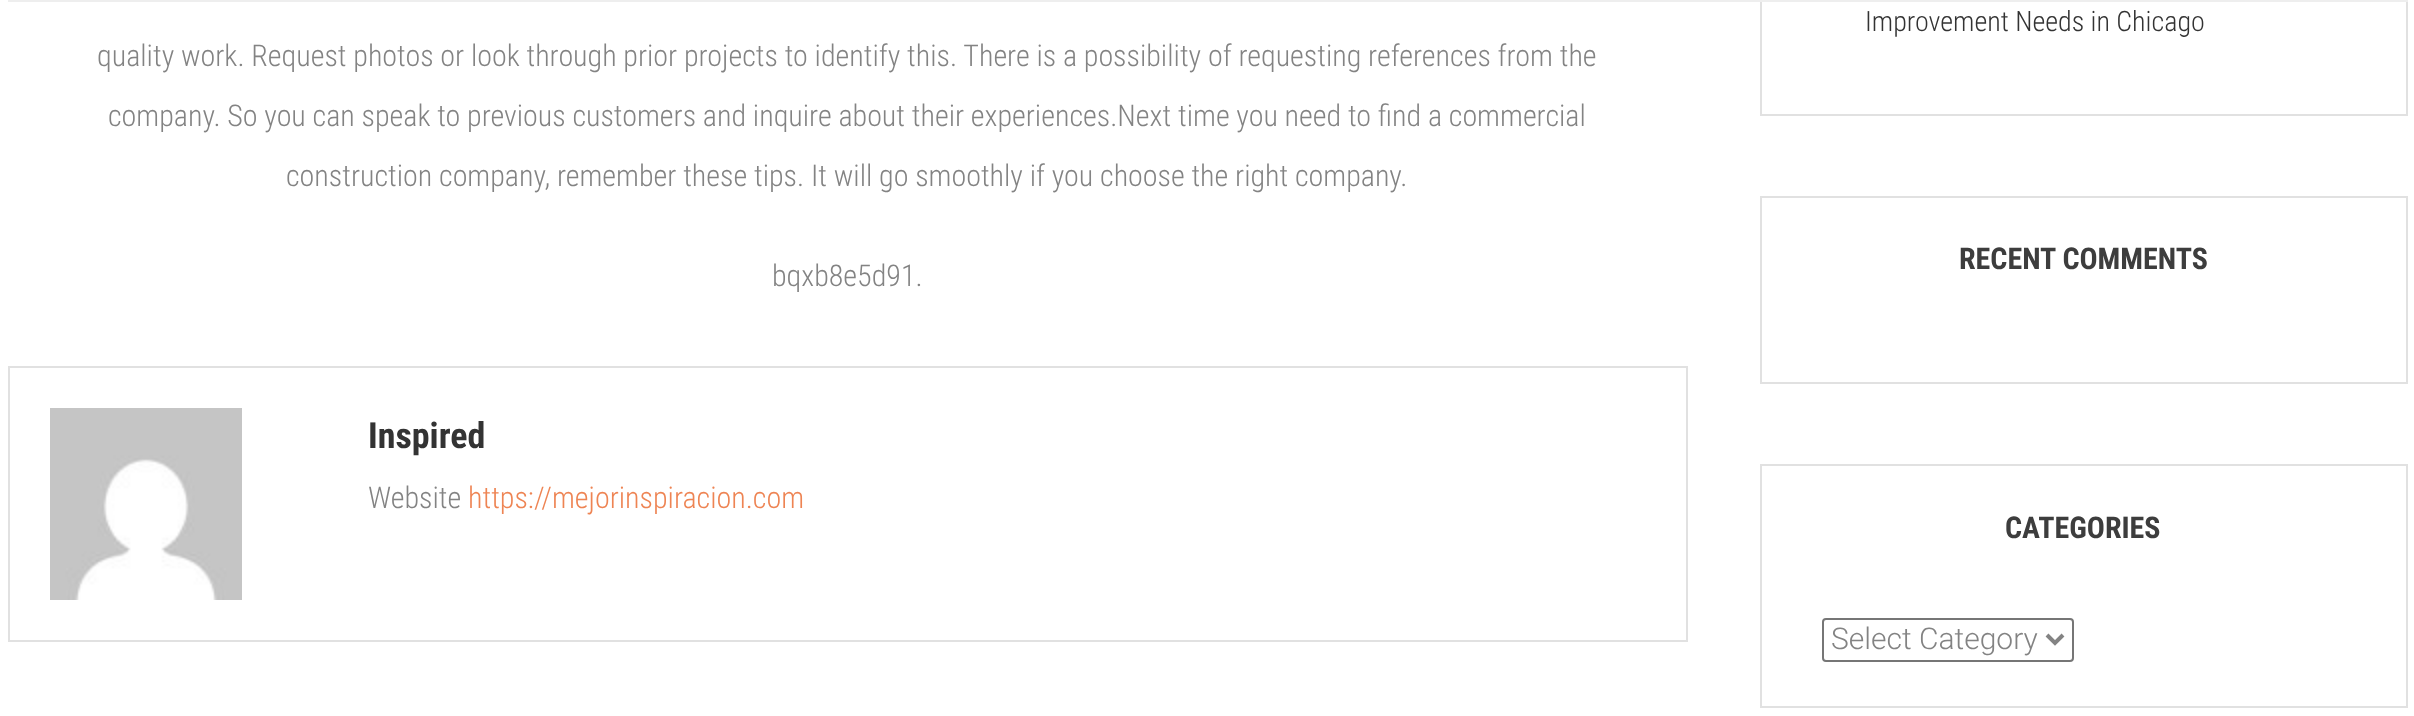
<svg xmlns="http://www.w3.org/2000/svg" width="2414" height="716">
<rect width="100%" height="100%" fill="#fff"/>
<rect x="1761" y="-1" width="646" height="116" fill="none" stroke="#e1e1e1" stroke-width="2"/>
<rect x="1760" width="654" height="2" fill="#fff"/>
<rect x="8" width="2400" height="2" fill="#eee"/>
<text x="97" y="66" style="font-family:Roboto Condensed;font-size:30px;font-weight:300;fill:#838383">quality work. Request photos or look through prior projects to identify this. There is a possibility of requesting references from the</text>
<text x="108" y="126" style="font-family:Roboto Condensed;font-size:30px;font-weight:300;fill:#838383">company. So you can speak to previous customers and inquire about their experiences.Next time you need to find a commercial</text>
<text x="286" y="186" style="font-family:Roboto Condensed;font-size:30px;font-weight:300;fill:#838383">construction company, remember these tips. It will go smoothly if you choose the right company.</text>
<text x="772" y="286" style="font-family:Roboto Condensed;font-size:30px;font-weight:300;fill:#838383">bqxb8e5d91.</text>
<rect x="9" y="367" width="1678" height="274" fill="none" stroke="#e1e1e1" stroke-width="2"/>
<image x="50" y="408" width="192" height="192" href="media/1.png"/>
<text x="368" y="448" style="font-family:Roboto Condensed;font-size:36px;font-weight:bold;fill:#333">Inspired</text>
<text x="368" y="508" style="font-family:Roboto Condensed;font-size:30px;font-weight:300;fill:#838383">Website</text>
<text x="468" y="508" style="font-family:Roboto Condensed;font-size:30px;font-weight:300;fill:#ee8453">https://mejorinspiracion.com</text>
<text x="1865" y="31" style="font-family:Roboto Condensed;font-size:28px;font-weight:300;fill:#333">Improvement Needs in Chicago</text>
<rect x="1761" y="197" width="646" height="186" fill="none" stroke="#e1e1e1" stroke-width="2"/>
<text x="1959" y="269" style="font-family:Roboto Condensed;font-size:30px;font-weight:bold;fill:#3d3d3d">RECENT COMMENTS</text>
<rect x="1761" y="465" width="646" height="242" fill="none" stroke="#e1e1e1" stroke-width="2"/>
<text x="2005" y="538" style="font-family:Roboto Condensed;font-size:30px;font-weight:bold;fill:#3d3d3d">CATEGORIES</text>
<rect x="1823" y="619" width="250" height="42" rx="3" fill="none" stroke="#767676" stroke-width="2"/>
<path d="M2047 635l8 8l8-8" fill="none" stroke="#838383" stroke-width="4"/>
<text x="1831" y="649" style="font-family:Roboto;font-size:30px;font-weight:300;fill:#838383">Select Category</text>
</svg>
